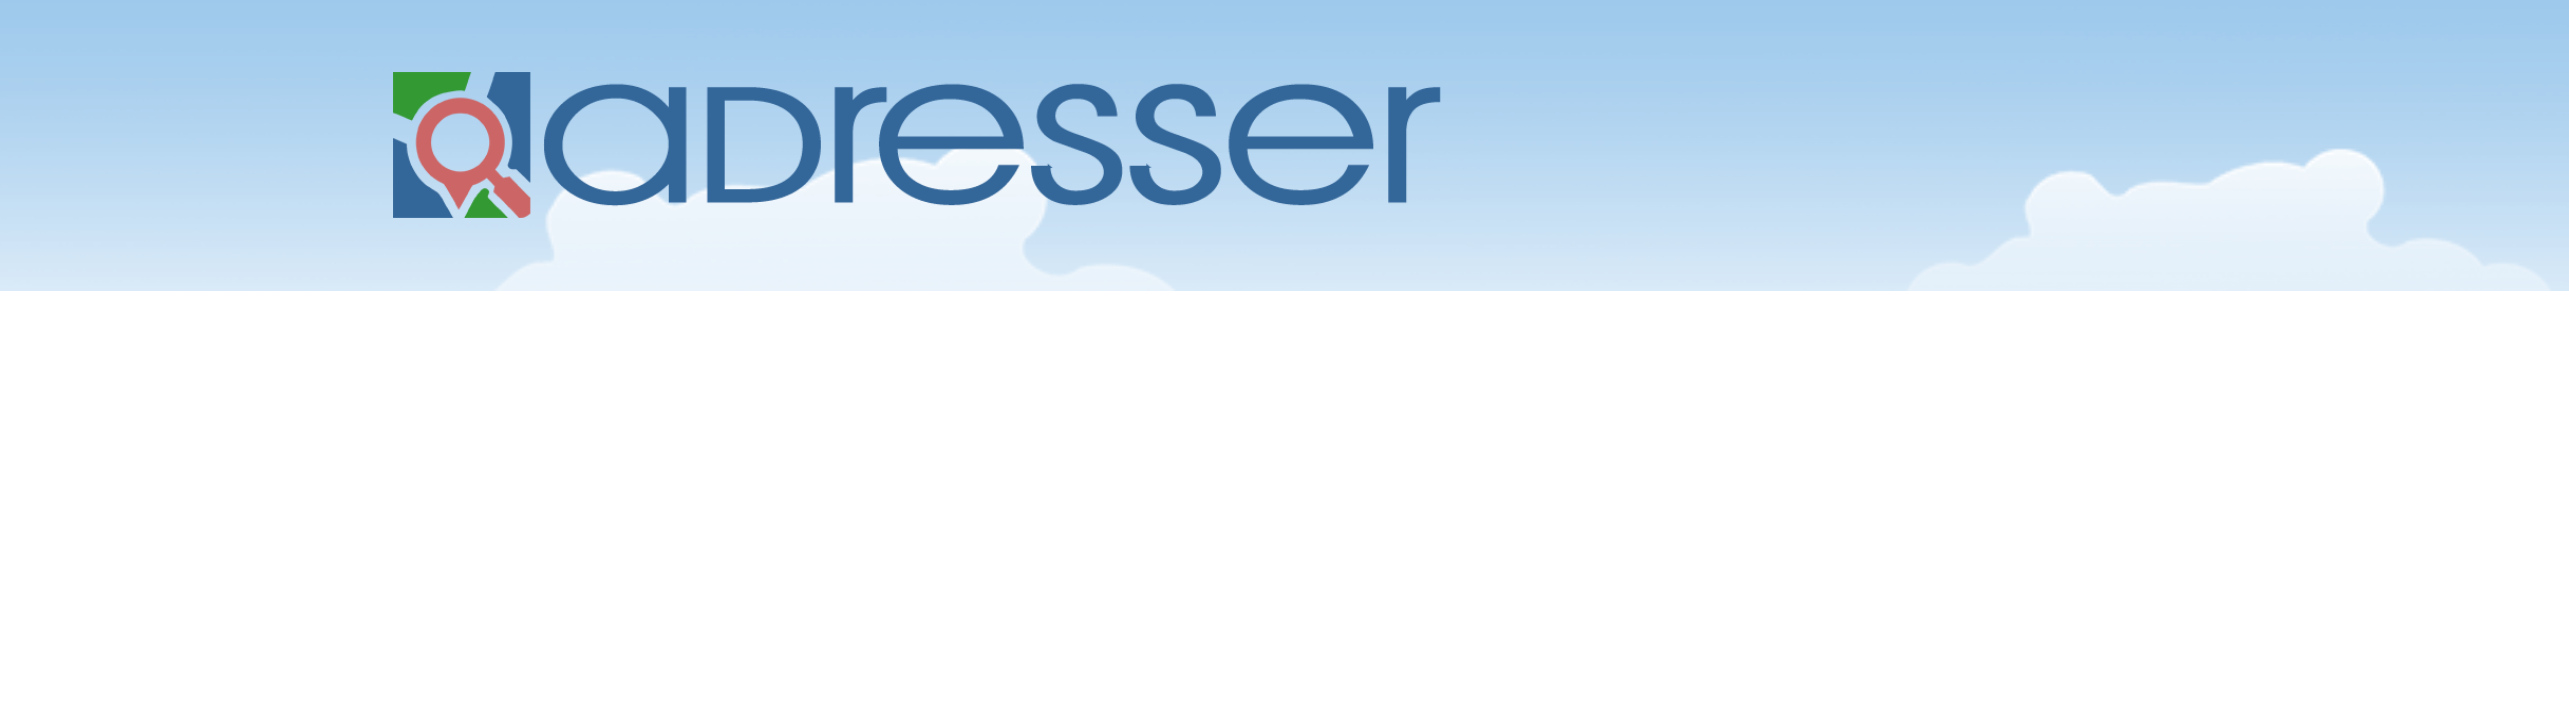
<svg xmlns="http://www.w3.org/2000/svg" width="2569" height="701">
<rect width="100%" height="100%" fill="#fff"/>
<image x="0" y="0" width="2569" height="291" href="media/1.png"/>
<image x="393" y="72" width="1048" height="146" href="media/2.png"/>
</svg>
